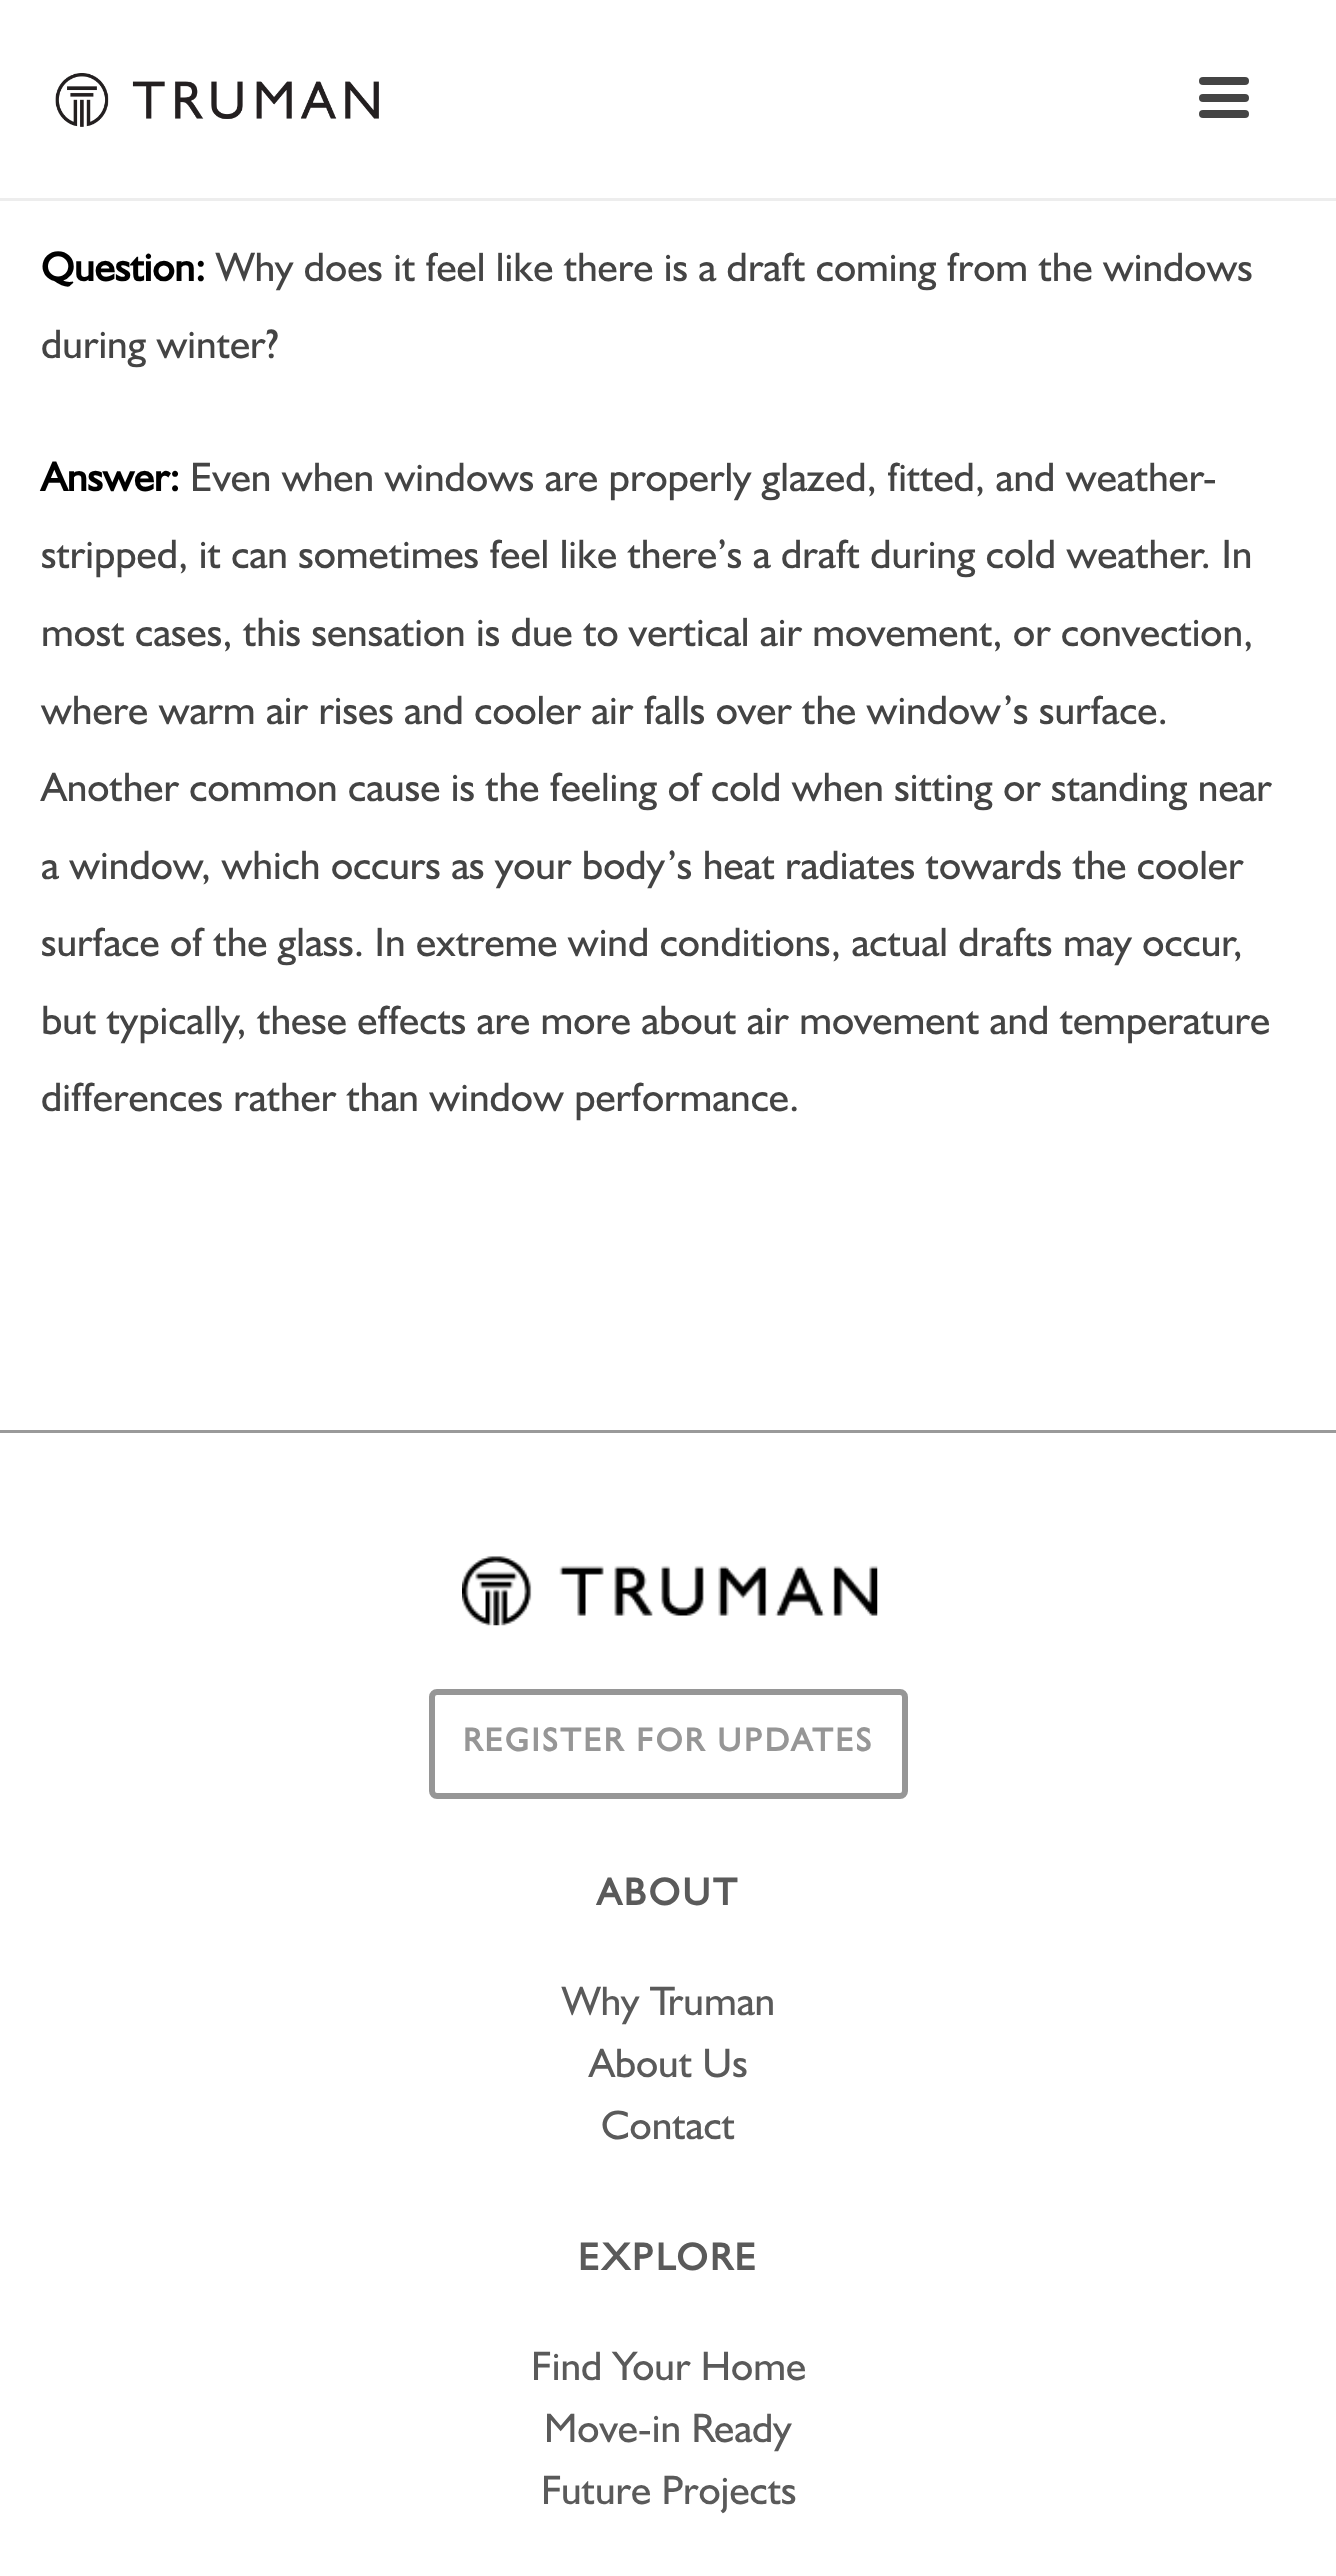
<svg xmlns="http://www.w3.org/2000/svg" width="1336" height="2576">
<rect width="100%" height="100%" fill="#fff"/>
<rect y="198" width="1336" height="3" fill="#ededed"/>
<image x="55" y="73" width="324" height="54" href="media/1.png"/>
<rect x="1199" y="77" width="50" height="8" rx="4" fill="#444"/>
<rect x="1199" y="94" width="50" height="8" rx="4" fill="#444"/>
<rect x="1199" y="110" width="50" height="8" rx="4" fill="#444"/>
<text x="41" y="281" style="font-family:'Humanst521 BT';font-size:41.25px;font-weight:bold;fill:#000">Question:</text>
<text x="216" y="281" style="font-family:'Humanst521 BT';font-size:41.25px;fill:#444">Why does it feel like there is a draft coming from the windows</text>
<text x="41" y="358" style="font-family:'Humanst521 BT';font-size:41.25px;fill:#444">during winter?</text>
<text x="41" y="491" style="font-family:'Humanst521 BT';font-size:41.25px;font-weight:bold;fill:#000">Answer:</text>
<text x="190" y="491" style="font-family:'Humanst521 BT';font-size:41.25px;fill:#444">Even when windows are properly glazed, fitted, and weather-</text>
<text x="41" y="568" style="font-family:'Humanst521 BT';font-size:41.25px;fill:#444">stripped, it can sometimes feel like there’s a draft during cold weather. In</text>
<text x="41" y="646" style="font-family:'Humanst521 BT';font-size:41.25px;fill:#444">most cases, this sensation is due to vertical air movement, or convection,</text>
<text x="41" y="724" style="font-family:'Humanst521 BT';font-size:41.25px;fill:#444">where warm air rises and cooler air falls over the window’s surface.</text>
<text x="41" y="801" style="font-family:'Humanst521 BT';font-size:41.25px;fill:#444">Another common cause is the feeling of cold when sitting or standing near</text>
<text x="41" y="879" style="font-family:'Humanst521 BT';font-size:41.25px;fill:#444">a window, which occurs as your body’s heat radiates towards the cooler</text>
<text x="41" y="956" style="font-family:'Humanst521 BT';font-size:41.25px;fill:#444">surface of the glass. In extreme wind conditions, actual drafts may occur,</text>
<text x="41" y="1034" style="font-family:'Humanst521 BT';font-size:41.25px;fill:#444">but typically, these effects are more about air movement and temperature</text>
<text x="41" y="1111" style="font-family:'Humanst521 BT';font-size:41.25px;fill:#444">differences rather than window performance.</text>
<rect y="1430" width="1336" height="3" fill="#9a9a9a"/>
<image x="462" y="1556" width="416" height="70" href="media/2.png"/>
<rect x="432" y="1692" width="473" height="104" rx="5" fill="none" stroke="#969696" stroke-width="6"/>
<text x="463" y="1751" style="font-family:'Humanst521 BT';font-size:33px;font-weight:bold;letter-spacing:2.75px;fill:#969696">REGISTER FOR UPDATES</text>
<text x="597" y="1905" style="font-family:'Humanst521 BT';font-size:38.5px;font-weight:bold;letter-spacing:2.75px;fill:#5a5a5a">ABOUT</text>
<text x="562" y="2015" style="font-family:'Humanst521 BT';font-size:41.25px;fill:#5a5a5a">Why Truman</text>
<text x="589" y="2077" style="font-family:'Humanst521 BT';font-size:41.25px;fill:#5a5a5a">About Us</text>
<text x="601" y="2139" style="font-family:'Humanst521 BT';font-size:41.25px;fill:#5a5a5a">Contact</text>
<text x="578" y="2270" style="font-family:'Humanst521 BT';font-size:38.5px;font-weight:bold;letter-spacing:2.75px;fill:#5a5a5a">EXPLORE</text>
<text x="531" y="2380" style="font-family:'Humanst521 BT';font-size:41.25px;fill:#5a5a5a">Find Your Home</text>
<text x="544" y="2442" style="font-family:'Humanst521 BT';font-size:41.25px;fill:#5a5a5a">Move-in Ready</text>
<text x="541" y="2504" style="font-family:'Humanst521 BT';font-size:41.25px;fill:#5a5a5a">Future Projects</text>
</svg>
